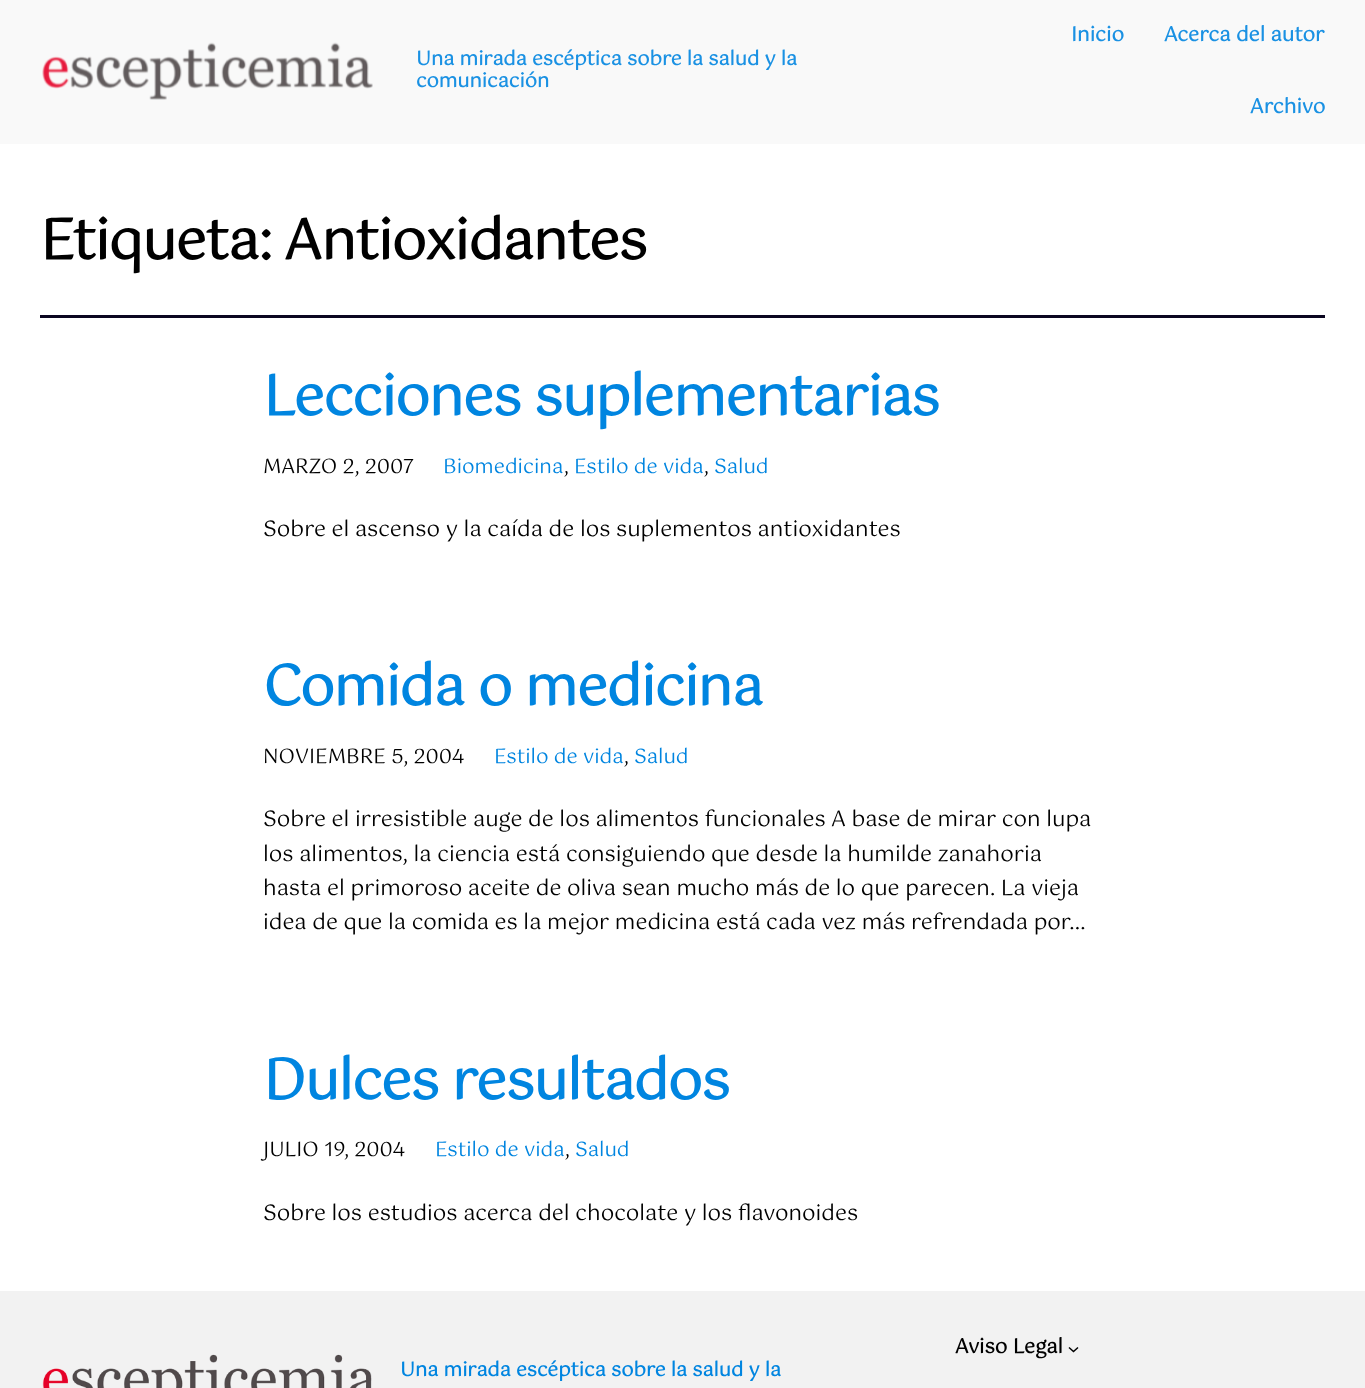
<svg xmlns="http://www.w3.org/2000/svg" width="1365" height="1388">
<rect width="100%" height="100%" fill="#fff"/>
<rect width="1365" height="144" fill="#f9f9f9"/>
<image x="42" y="42" width="331" height="58" href="media/1.png"/>
<text x="416" y="65" style="font-family:Gotu;font-size:19.5px;font-weight:bold;fill:#1a91e3">Una mirada escéptica sobre la salud y la</text>
<text x="416" y="87" style="font-family:Gotu;font-size:19.5px;font-weight:bold;fill:#1a91e3">comunicación</text>
<text x="1071" y="41" style="font-family:Gotu;font-size:20px;font-weight:bold;fill:#1a91e3">Inicio</text>
<text x="1164" y="41" style="font-family:Gotu;font-size:20px;font-weight:bold;fill:#1a91e3">Acerca del autor</text>
<text x="1250" y="113" style="font-family:Gotu;font-size:20px;font-weight:bold;fill:#1a91e3">Archivo</text>
<text x="40" y="259" style="font-family:Gotu;font-size:55.5px;font-weight:bold;letter-spacing:-1.1px;fill:#000">Etiqueta: Antioxidantes</text>
<rect x="40" y="315" width="1285" height="3" fill="#0b0620"/>
<text x="263" y="415" style="font-family:Gotu;font-size:55.5px;font-weight:bold;letter-spacing:-1.1px;fill:#0085e0">Lecciones suplementarias</text>
<text x="263" y="473" style="font-family:Gotu;font-size:20px;fill:#000">MARZO 2, 2007</text>
<text x="443" y="473" style="font-family:Gotu;font-size:20px;fill:#0085e0">Biomedicina</text>
<text x="564" y="473" style="font-family:Gotu;font-size:20px;fill:#000">,</text>
<text x="574" y="473" style="font-family:Gotu;font-size:20px;fill:#0085e0">Estilo de vida</text>
<text x="704" y="473" style="font-family:Gotu;font-size:20px;fill:#000">,</text>
<text x="714" y="473" style="font-family:Gotu;font-size:20px;fill:#0085e0">Salud</text>
<text x="263" y="536" style="font-family:Gotu;font-size:21.5px;fill:#000">Sobre el ascenso y la caída de los suplementos antioxidantes</text>
<text x="263" y="705" style="font-family:Gotu;font-size:55.5px;font-weight:bold;letter-spacing:-1.1px;fill:#0085e0">Comida o medicina</text>
<text x="263" y="763" style="font-family:Gotu;font-size:20px;fill:#000">NOVIEMBRE 5, 2004</text>
<text x="494" y="763" style="font-family:Gotu;font-size:20px;fill:#0085e0">Estilo de vida</text>
<text x="624" y="763" style="font-family:Gotu;font-size:20px;fill:#000">,</text>
<text x="634" y="763" style="font-family:Gotu;font-size:20px;fill:#0085e0">Salud</text>
<text x="263" y="826" style="font-family:Gotu;font-size:21.5px;fill:#000">Sobre el irresistible auge de los alimentos funcionales A base de mirar con lupa</text>
<text x="263" y="861" style="font-family:Gotu;font-size:21.5px;fill:#000">los alimentos, la ciencia está consiguiendo que desde la humilde zanahoria</text>
<text x="263" y="895" style="font-family:Gotu;font-size:21.5px;fill:#000">hasta el primoroso aceite de oliva sean mucho más de lo que parecen. La vieja</text>
<text x="263" y="929" style="font-family:Gotu;font-size:21.5px;fill:#000">idea de que la comida es la mejor medicina está cada vez más refrendada por…</text>
<text x="263" y="1099" style="font-family:Gotu;font-size:55.5px;font-weight:bold;letter-spacing:-1.1px;fill:#0085e0">Dulces resultados</text>
<text x="263" y="1156" style="font-family:Gotu;font-size:20px;fill:#000">JULIO 19, 2004</text>
<text x="435" y="1156" style="font-family:Gotu;font-size:20px;fill:#0085e0">Estilo de vida</text>
<text x="565" y="1156" style="font-family:Gotu;font-size:20px;fill:#000">,</text>
<text x="575" y="1156" style="font-family:Gotu;font-size:20px;fill:#0085e0">Salud</text>
<text x="263" y="1220" style="font-family:Gotu;font-size:21.5px;fill:#000">Sobre los estudios acerca del chocolate y los flavonoides</text>
<rect y="1291" width="1365" height="97" fill="#f2f2f2"/>
<text x="955" y="1353" style="font-family:Gotu;font-size:20px;font-weight:bold;fill:#000">Aviso Legal</text>
<path d="M1069 1347.5l4.5 4l4.5-4" fill="none" stroke="#000" stroke-width="1.5"/>
<image x="42" y="1354" width="330" height="34" href="media/2.png"/>
<text x="400" y="1376" style="font-family:Gotu;font-size:19.5px;font-weight:bold;fill:#0085e0">Una mirada escéptica sobre la salud y la</text>
</svg>
